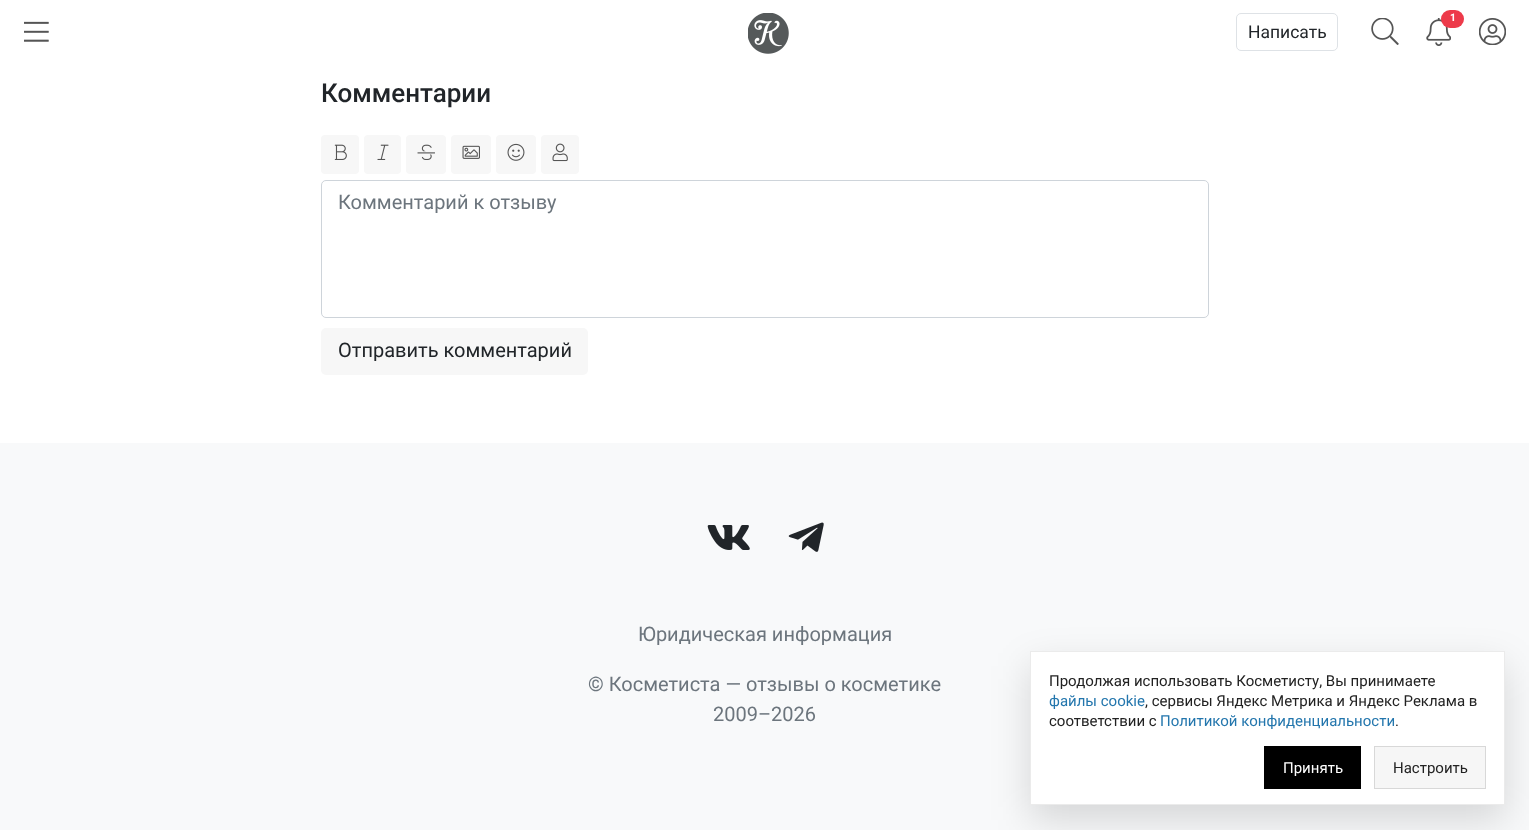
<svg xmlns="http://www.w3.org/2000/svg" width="1529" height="830">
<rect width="100%" height="100%" fill="#fff"/>
<image x="24" y="21" width="25" height="21" href="media/1.png"/>
<image x="748" y="13" width="41" height="41" href="media/2.png"/>
<image x="1426" y="18" width="25" height="28" href="media/3.png"/>
<rect x="1441" y="10" width="23" height="18" rx="9" fill="#ed3a4a"/>
<text x="1450" y="21" style="font-family:Roboto;font-size:10px;font-weight:bold;fill:#fff">1</text>
<rect x="1236.5" y="13.5" width="101" height="37" rx="4.5" fill="none" stroke="#dee2e6"/>
<text x="1248" y="38" style="font-family:Roboto;font-size:17.5px;fill:#212529">Написать</text>
<image x="1371" y="18" width="28" height="27" href="media/4.png"/>
<image x="1479" y="18" width="27" height="27" href="media/5.png"/>
<text x="321" y="102" style="font-family:Roboto;font-size:26px;font-weight:500;fill:#212529">Комментарии</text>
<rect x="321" y="135" width="38" height="39" rx="4" fill="#f7f7f7"/>
<image x="334" y="144" width="13" height="16" href="media/6.png"/>
<rect x="364" y="135" width="37" height="39" rx="4" fill="#f7f7f7"/>
<image x="377" y="144" width="12" height="16" href="media/7.png"/>
<rect x="406" y="135" width="40" height="39" rx="4" fill="#f7f7f7"/>
<image x="417" y="144" width="18" height="16" href="media/8.png"/>
<rect x="451" y="135" width="40" height="39" rx="4" fill="#f7f7f7"/>
<image x="462" y="145" width="18" height="14" href="media/9.png"/>
<rect x="496" y="135" width="40" height="39" rx="4" fill="#f7f7f7"/>
<image x="507" y="143" width="18" height="18" href="media/10.png"/>
<rect x="541" y="135" width="38" height="39" rx="4" fill="#f7f7f7"/>
<image x="552" y="143" width="16" height="19" href="media/11.png"/>
<rect x="321.5" y="180.5" width="887" height="137" rx="4.5" fill="none" stroke="#ced4da"/>
<text x="338" y="209" style="font-family:Roboto;font-size:20px;fill:#6c757d">Комментарий к отзыву</text>
<rect x="321" y="328" width="267" height="47" rx="5" fill="#f7f7f7"/>
<text x="338" y="357" style="font-family:Roboto;font-size:20px;fill:#212529">Отправить комментарий</text>
<rect y="443" width="1529" height="387" fill="#f8f9fa"/>
<image x="707" y="525" width="43" height="25" href="media/12.png"/>
<image x="788" y="522" width="36" height="30" href="media/13.png"/>
<text x="638" y="641" style="font-family:Roboto;font-size:20px;fill:#6c757d">Юридическая информация</text>
<text x="588" y="691" style="font-family:Roboto;font-size:20px;fill:#6c757d">© Косметиста — отзывы о косметике</text>
<text x="713" y="721" style="font-family:Roboto;font-size:20px;fill:#6c757d">2009–2026</text>
<rect x="1030" y="666" width="475" height="154" fill="#00000024" filter="blur(19px)"/>
<rect x="1030.5" y="651.5" width="474" height="153" fill="#fff" stroke="#ebebeb"/>
<text x="1049" y="686" style="font-family:Roboto;font-size:15px;fill:#222">Продолжая использовать Косметисту, Вы принимаете</text>
<text x="1049" y="706" style="font-family:Roboto;font-size:15px;fill:#2376ad">файлы cookie</text>
<text x="1145" y="706" style="font-family:Roboto;font-size:15px;fill:#222">, сервисы Яндекс Метрика и Яндекс Реклама в</text>
<text x="1049" y="726" style="font-family:Roboto;font-size:15px;fill:#222">соответствии с</text>
<text x="1160" y="726" style="font-family:Roboto;font-size:15px;fill:#2376ad">Политикой конфиденциальности</text>
<text x="1395" y="726" style="font-family:Roboto;font-size:15px;fill:#222">.</text>
<rect x="1264" y="746" width="97" height="43" fill="#000"/>
<text x="1283" y="773" style="font-family:Roboto;font-size:15px;fill:#fff">Принять</text>
<rect x="1374.5" y="746.5" width="111" height="42" fill="#f6f6f6" stroke="#d8d8d8"/>
<text x="1393" y="773" style="font-family:Roboto;font-size:15px;fill:#222">Настроить</text>
</svg>
